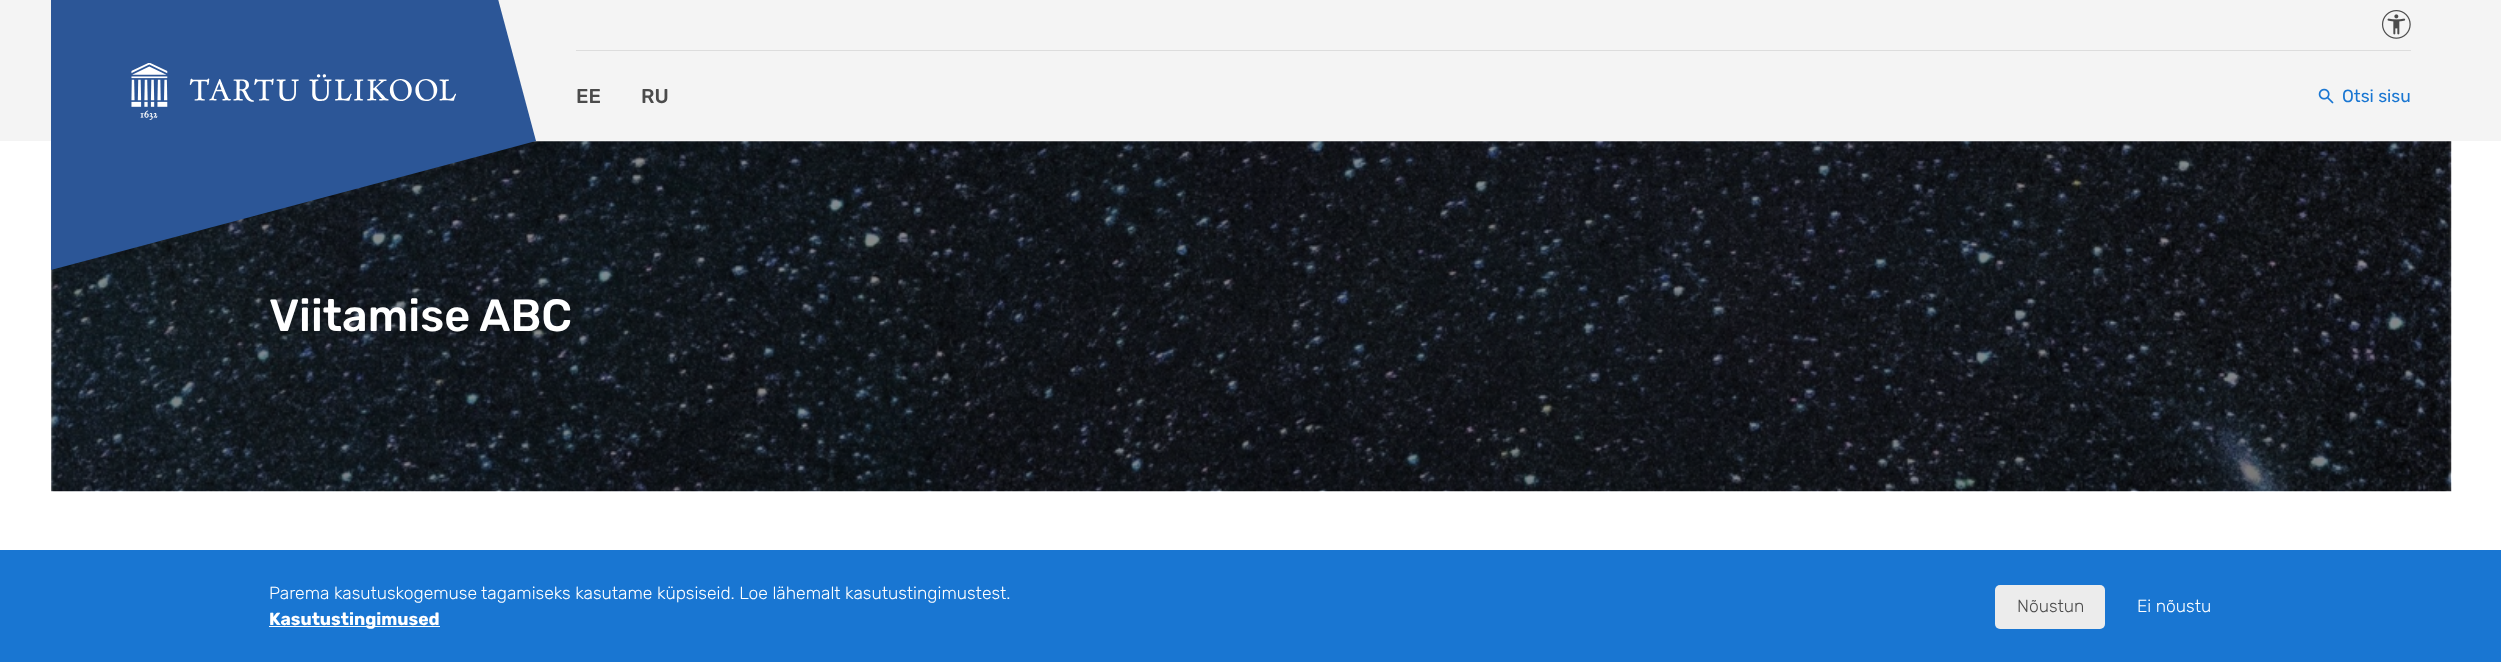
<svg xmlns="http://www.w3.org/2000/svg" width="2501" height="662">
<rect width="100%" height="100%" fill="#fff"/>
<rect width="2501" height="141" fill="#f4f4f4"/>
<image x="51" y="141" width="2401" height="351" href="media/4.png"/>
<path d="M51 270v-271h447l38 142z" fill="#2c5697"/>
<image x="131" y="63" width="325" height="57" href="media/1.png"/>
<rect x="576" y="50" width="1835" height="1" fill="#ddd"/>
<image x="2381" y="10" width="30" height="29" href="media/2.png"/>
<text x="576" y="103" style="font-family:Rubik;font-size:20px;font-weight:500;fill:#4b4b4b">EE</text>
<text x="641" y="103" style="font-family:Rubik;font-size:20px;font-weight:500;fill:#4b4b4b">RU</text>
<image x="2318" y="88" width="16" height="16" href="media/3.png"/>
<text x="2342" y="102" style="font-family:Rubik;font-size:17.5px;fill:#1976d2">Otsi sisu</text>
<text x="269" y="331" style="font-family:Rubik;font-size:45px;font-weight:500;fill:#fff">Viitamise ABC</text>
<rect y="550" width="2501" height="112" fill="#1976d2"/>
<text x="269" y="599" style="font-family:Rubik;font-size:17.5px;font-weight:300;fill:#fff">Parema kasutuskogemuse tagamiseks kasutame küpsiseid. Loe lähemalt kasutustingimustest.</text>
<rect x="269" y="626" width="171" height="1" fill="#fff"/>
<text x="269" y="625" style="font-family:Rubik;font-size:17.5px;font-weight:bold;fill:#fff">Kasutustingimused</text>
<rect x="1995" y="585" width="110" height="44" rx="5" fill="#ececec"/>
<text x="2017" y="612" style="font-family:Rubik;font-size:17.5px;font-weight:300;fill:#4b4b4b">Nõustun</text>
<text x="2137" y="612" style="font-family:Rubik;font-size:17.5px;font-weight:300;fill:#fff">Ei nõustu</text>
</svg>
